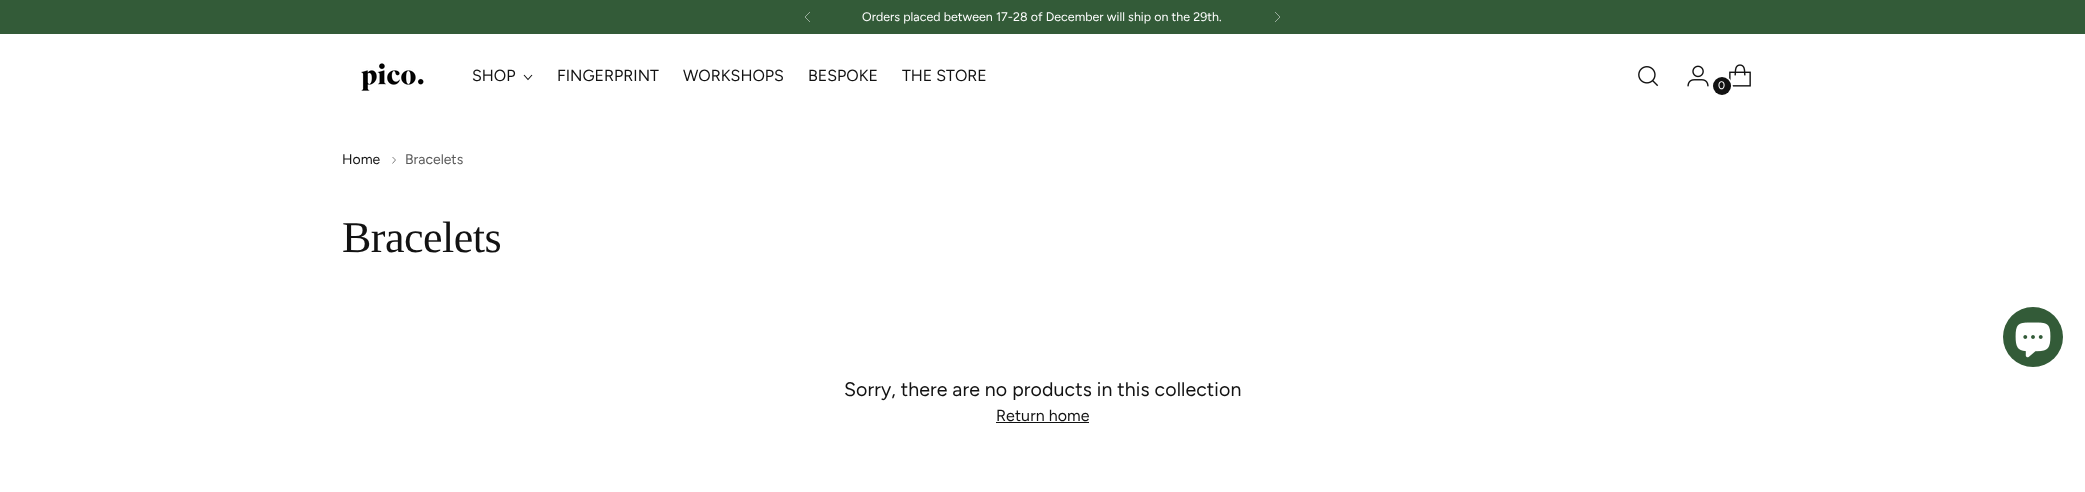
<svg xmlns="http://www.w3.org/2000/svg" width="2085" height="492">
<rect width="100%" height="100%" fill="#fff"/>
<rect width="2085" height="34" fill="#335b38"/>
<path d="M810 12l-5 5l5 5" fill="none" stroke="#99ad9c"/>
<path d="M1275 22l5-5l-5-5" fill="none" stroke="#99ad9c"/>
<text x="862" y="21" style="font-family:Figtree;font-size:12.4px;letter-spacing:0.05px;fill:#fff">Orders placed between 17-28 of December will ship on the 29th.</text>
<image x="361" y="63" width="63" height="28" href="media/1.png"/>
<text x="472" y="81" style="font-family:Figtree;font-size:16px;fill:#121212">SHOP</text>
<path d="M524 75l4 4.5l4-4.5" fill="none" stroke="#121212" stroke-width="1.1"/>
<text x="557" y="81" style="font-family:Figtree;font-size:16px;fill:#121212">FINGERPRINT</text>
<text x="683" y="81" style="font-family:Figtree;font-size:16px;fill:#121212">WORKSHOPS</text>
<text x="808" y="81" style="font-family:Figtree;font-size:16px;fill:#121212">BESPOKE</text>
<text x="902" y="81" style="font-family:Figtree;font-size:16px;fill:#121212">THE STORE</text>
<image x="1638" y="66" width="21" height="21" href="media/2.png"/>
<image x="1687" y="65" width="22" height="22" href="media/3.png"/>
<image x="1729" y="64" width="22" height="23" href="media/4.png"/>
<circle cx="1722.5" cy="86.5" r="9.5" fill="none" stroke="#fff" stroke-width="2"/>
<circle cx="1722" cy="86" r="9" fill="#121212"/>
<text x="1718" y="89" style="font-family:Figtree;font-size:11px;letter-spacing:0.1px;fill:#fff">0</text>
<text x="342" y="164" style="font-family:Figtree;font-size:14px;fill:#121212">Home</text>
<path d="M392.5 163.5l3-3.5l-3-3" fill="none" stroke="#717171" stroke-width="0.9"/>
<text x="405" y="164" style="font-family:Figtree;font-size:14px;fill:#595959">Bracelets</text>
<text x="342" y="252" style="font-family:Liberation Serif;font-size:44px;letter-spacing:-0.5px;fill:#121212">Bracelets</text>
<text x="844" y="396" style="font-family:Figtree;font-size:19.55px;letter-spacing:0.1px;fill:#121212">Sorry, there are no products in this collection</text>
<text x="996" y="421" style="font-family:Figtree;font-size:16px;letter-spacing:0.1px;fill:#121212">Return home</text>
<rect x="996" y="422" width="93" height="1" fill="#121212"/>
<circle cx="2033" cy="337" r="30" fill="#335b38"/>
<image x="2015" y="322" width="36" height="36" href="media/5.png"/>
</svg>
